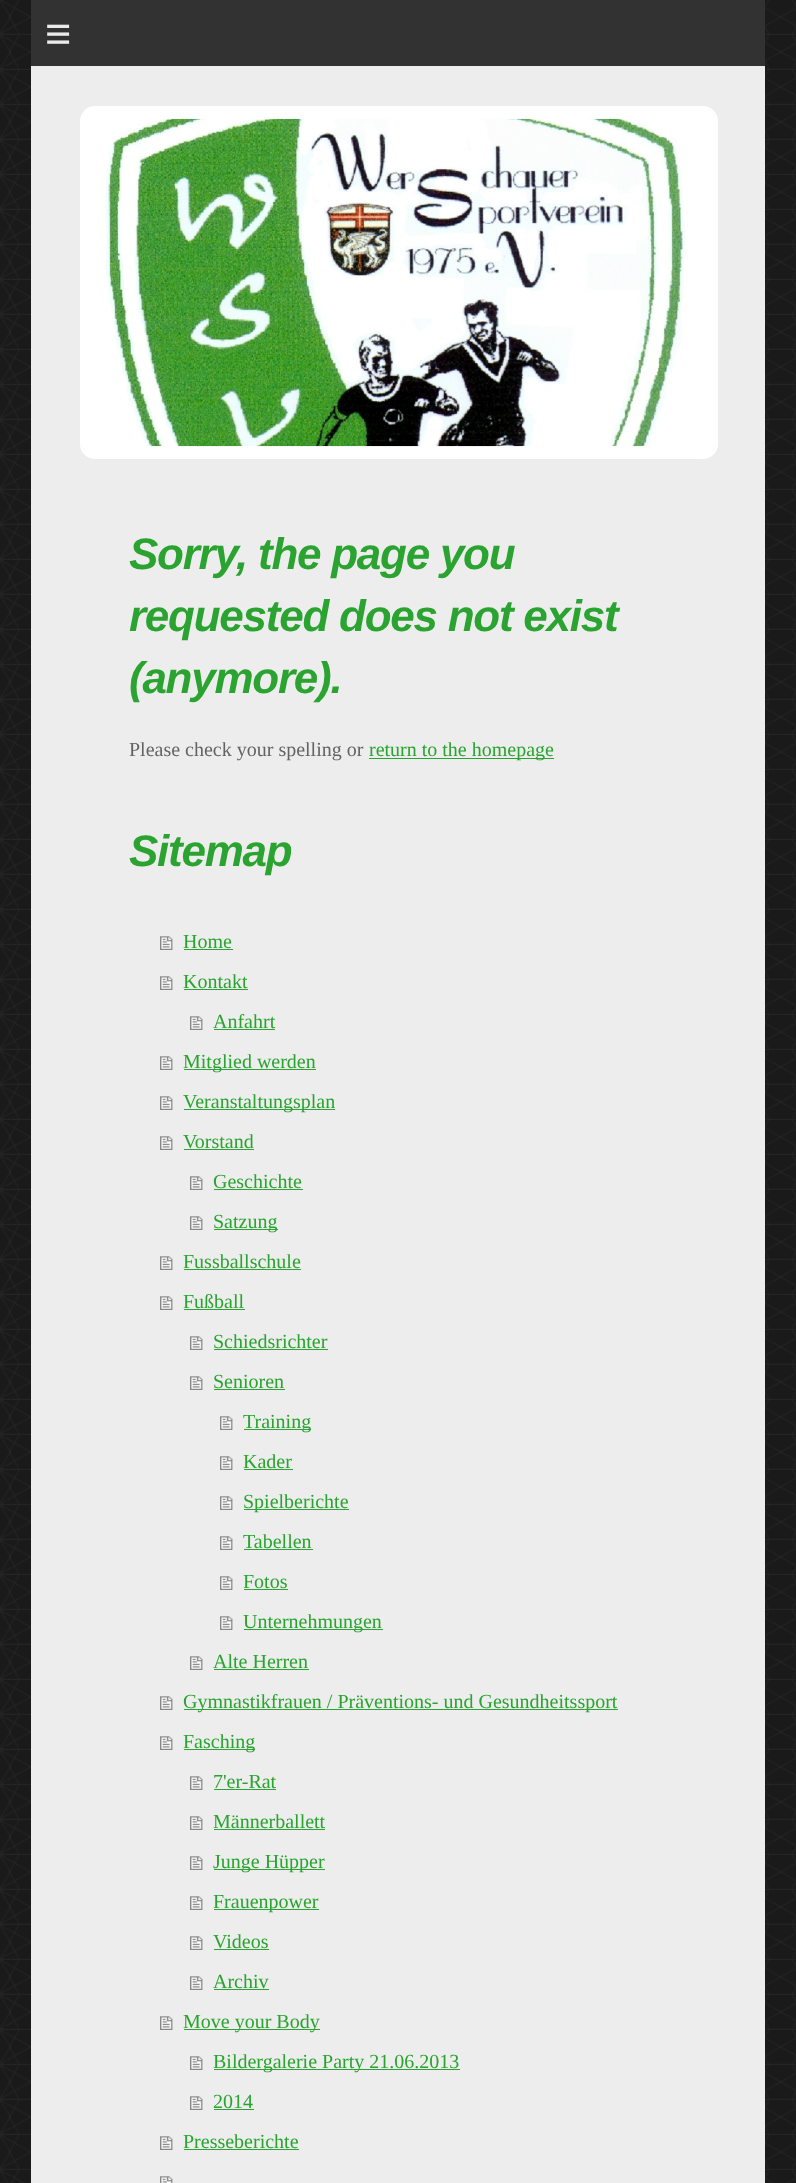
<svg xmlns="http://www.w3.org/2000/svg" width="796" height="2183">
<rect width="100%" height="100%" fill="#1a1a1a"/>
<image x="0" y="0" width="796" height="2183" href="media/1.png"/>
<rect x="31" width="734" height="66" fill="#333232"/>
<text x="45" y="49" style="font-family:Liberation Sans;font-size:45px;letter-spacing:13px;fill:#eaeaea">≡</text>
<rect x="31" y="66" width="734" height="2117" fill="#ededed"/>
<rect x="86.5" y="112.5" width="625" height="340" rx="8.5" fill="none" stroke="#fff" stroke-width="13"/>
<image x="93" y="118" width="612" height="329" href="media/2.png"/>
<text x="129" y="569" style="font-family:Liberation Sans;font-size:44px;font-weight:bold;font-style:italic;letter-spacing:-1.25px;fill:#2aa330">Sorry, the page you</text>
<text x="129" y="631" style="font-family:Liberation Sans;font-size:44px;font-weight:bold;font-style:italic;letter-spacing:-1.25px;fill:#2aa330">requested does not exist</text>
<text x="129" y="693" style="font-family:Liberation Sans;font-size:44px;font-weight:bold;font-style:italic;letter-spacing:-1.25px;fill:#2aa330">(anymore).</text>
<text x="129" y="756" style="font-family:Liberation Serif;font-size:20px;fill:#636363">Please check your spelling or</text>
<rect x="369" y="758" width="185" height="1" fill="#2aa330"/>
<text x="369" y="756" style="font-family:Liberation Serif;font-size:20px;fill:#2aa330">return to the homepage</text>
<text x="129" y="866" style="font-family:Liberation Sans;font-size:44px;font-weight:bold;font-style:italic;letter-spacing:-1.25px;fill:#2aa330">Sitemap</text>
<image x="160" y="936" width="13" height="14" href="media/3.png"/>
<text x="183" y="948" style="font-family:Liberation Serif;font-size:20px;fill:#2aa330">Home</text>
<rect x="184" y="949" width="49" height="1" fill="#2aa330"/>
<image x="160" y="976" width="13" height="14" href="media/3.png"/>
<text x="183" y="988" style="font-family:Liberation Serif;font-size:20px;fill:#2aa330">Kontakt</text>
<rect x="184" y="989" width="64" height="1" fill="#2aa330"/>
<image x="190" y="1016" width="13" height="14" href="media/4.png"/>
<text x="213" y="1028" style="font-family:Liberation Serif;font-size:20px;fill:#2aa330">Anfahrt</text>
<rect x="214" y="1029" width="61" height="1" fill="#2aa330"/>
<image x="160" y="1056" width="13" height="14" href="media/3.png"/>
<rect x="184" y="1069" width="132" height="1" fill="#2aa330"/>
<text x="183" y="1068" style="font-family:Liberation Serif;font-size:20px;fill:#2aa330">Mitglied werden</text>
<image x="160" y="1096" width="13" height="14" href="media/3.png"/>
<rect x="184" y="1109" width="151" height="1" fill="#2aa330"/>
<text x="183" y="1108" style="font-family:Liberation Serif;font-size:20px;fill:#2aa330">Veranstaltungsplan</text>
<image x="160" y="1136" width="13" height="14" href="media/3.png"/>
<text x="183" y="1148" style="font-family:Liberation Serif;font-size:20px;fill:#2aa330">Vorstand</text>
<rect x="184" y="1149" width="70" height="1" fill="#2aa330"/>
<image x="190" y="1176" width="13" height="14" href="media/5.png"/>
<text x="213" y="1188" style="font-family:Liberation Serif;font-size:20px;fill:#2aa330">Geschichte</text>
<rect x="214" y="1189" width="89" height="1" fill="#2aa330"/>
<image x="190" y="1216" width="13" height="14" href="media/4.png"/>
<rect x="214" y="1229" width="64" height="1" fill="#2aa330"/>
<text x="213" y="1228" style="font-family:Liberation Serif;font-size:20px;fill:#2aa330">Satzung</text>
<image x="160" y="1256" width="13" height="14" href="media/3.png"/>
<text x="183" y="1268" style="font-family:Liberation Serif;font-size:20px;fill:#2aa330">Fussballschule</text>
<rect x="184" y="1269" width="117" height="1" fill="#2aa330"/>
<image x="160" y="1296" width="13" height="14" href="media/3.png"/>
<text x="183" y="1308" style="font-family:Liberation Serif;font-size:20px;fill:#2aa330">Fußball</text>
<rect x="184" y="1309" width="61" height="1" fill="#2aa330"/>
<image x="190" y="1336" width="13" height="14" href="media/4.png"/>
<text x="213" y="1348" style="font-family:Liberation Serif;font-size:20px;fill:#2aa330">Schiedsrichter</text>
<rect x="214" y="1349" width="114" height="1" fill="#2aa330"/>
<image x="190" y="1376" width="13" height="14" href="media/4.png"/>
<text x="213" y="1388" style="font-family:Liberation Serif;font-size:20px;fill:#2aa330">Senioren</text>
<rect x="214" y="1389" width="71" height="1" fill="#2aa330"/>
<image x="220" y="1416" width="13" height="14" href="media/3.png"/>
<rect x="244" y="1429" width="67" height="1" fill="#2aa330"/>
<text x="243" y="1428" style="font-family:Liberation Serif;font-size:20px;fill:#2aa330">Training</text>
<image x="220" y="1456" width="13" height="14" href="media/3.png"/>
<text x="243" y="1468" style="font-family:Liberation Serif;font-size:20px;fill:#2aa330">Kader</text>
<rect x="244" y="1469" width="49" height="1" fill="#2aa330"/>
<image x="220" y="1496" width="13" height="14" href="media/3.png"/>
<rect x="244" y="1509" width="105" height="1" fill="#2aa330"/>
<text x="243" y="1508" style="font-family:Liberation Serif;font-size:20px;fill:#2aa330">Spielberichte</text>
<image x="220" y="1536" width="13" height="14" href="media/3.png"/>
<text x="243" y="1548" style="font-family:Liberation Serif;font-size:20px;fill:#2aa330">Tabellen</text>
<rect x="244" y="1549" width="69" height="1" fill="#2aa330"/>
<image x="220" y="1576" width="13" height="14" href="media/3.png"/>
<text x="243" y="1588" style="font-family:Liberation Serif;font-size:20px;fill:#2aa330">Fotos</text>
<rect x="244" y="1589" width="44" height="1" fill="#2aa330"/>
<image x="220" y="1616" width="13" height="14" href="media/3.png"/>
<rect x="244" y="1629" width="139" height="1" fill="#2aa330"/>
<text x="243" y="1628" style="font-family:Liberation Serif;font-size:20px;fill:#2aa330">Unternehmungen</text>
<image x="190" y="1656" width="13" height="14" href="media/4.png"/>
<text x="213" y="1668" style="font-family:Liberation Serif;font-size:20px;fill:#2aa330">Alte Herren</text>
<rect x="214" y="1669" width="95" height="1" fill="#2aa330"/>
<image x="160" y="1696" width="13" height="14" href="media/3.png"/>
<rect x="184" y="1709" width="434" height="1" fill="#2aa330"/>
<text x="183" y="1708" style="font-family:Liberation Serif;font-size:20px;fill:#2aa330">Gymnastikfrauen / Präventions- und Gesundheitssport</text>
<image x="160" y="1736" width="13" height="14" href="media/3.png"/>
<rect x="184" y="1749" width="71" height="1" fill="#2aa330"/>
<text x="183" y="1748" style="font-family:Liberation Serif;font-size:20px;fill:#2aa330">Fasching</text>
<image x="190" y="1776" width="13" height="14" href="media/4.png"/>
<text x="213" y="1788" style="font-family:Liberation Serif;font-size:20px;fill:#2aa330">7'er-Rat</text>
<rect x="214" y="1789" width="62" height="1" fill="#2aa330"/>
<image x="190" y="1816" width="13" height="14" href="media/4.png"/>
<text x="213" y="1828" style="font-family:Liberation Serif;font-size:20px;fill:#2aa330">Männerballett</text>
<rect x="214" y="1829" width="111" height="1" fill="#2aa330"/>
<image x="190" y="1856" width="13" height="14" href="media/6.png"/>
<rect x="214" y="1869" width="111" height="1" fill="#2aa330"/>
<text x="213" y="1868" style="font-family:Liberation Serif;font-size:20px;fill:#2aa330">Junge Hüpper</text>
<image x="190" y="1896" width="13" height="14" href="media/4.png"/>
<rect x="214" y="1909" width="105" height="1" fill="#2aa330"/>
<text x="213" y="1908" style="font-family:Liberation Serif;font-size:20px;fill:#2aa330">Frauenpower</text>
<image x="190" y="1936" width="13" height="14" href="media/4.png"/>
<text x="213" y="1948" style="font-family:Liberation Serif;font-size:20px;fill:#2aa330">Videos</text>
<rect x="214" y="1949" width="55" height="1" fill="#2aa330"/>
<image x="190" y="1976" width="13" height="14" href="media/4.png"/>
<text x="213" y="1988" style="font-family:Liberation Serif;font-size:20px;fill:#2aa330">Archiv</text>
<rect x="214" y="1989" width="55" height="1" fill="#2aa330"/>
<image x="160" y="2016" width="13" height="14" href="media/3.png"/>
<rect x="184" y="2029" width="136" height="1" fill="#2aa330"/>
<text x="183" y="2028" style="font-family:Liberation Serif;font-size:20px;fill:#2aa330">Move your Body</text>
<image x="190" y="2056" width="13" height="14" href="media/4.png"/>
<rect x="214" y="2069" width="246" height="1" fill="#2aa330"/>
<text x="213" y="2068" style="font-family:Liberation Serif;font-size:20px;fill:#2aa330">Bildergalerie Party 21.06.2013</text>
<image x="190" y="2096" width="13" height="14" href="media/4.png"/>
<text x="213" y="2108" style="font-family:Liberation Serif;font-size:20px;fill:#2aa330">2014</text>
<rect x="214" y="2109" width="40" height="1" fill="#2aa330"/>
<image x="160" y="2136" width="13" height="14" href="media/3.png"/>
<text x="183" y="2148" style="font-family:Liberation Serif;font-size:20px;fill:#2aa330">Presseberichte</text>
<rect x="184" y="2149" width="115" height="1" fill="#2aa330"/>
<image x="160" y="2176" width="13" height="7" href="media/7.png"/>
</svg>
